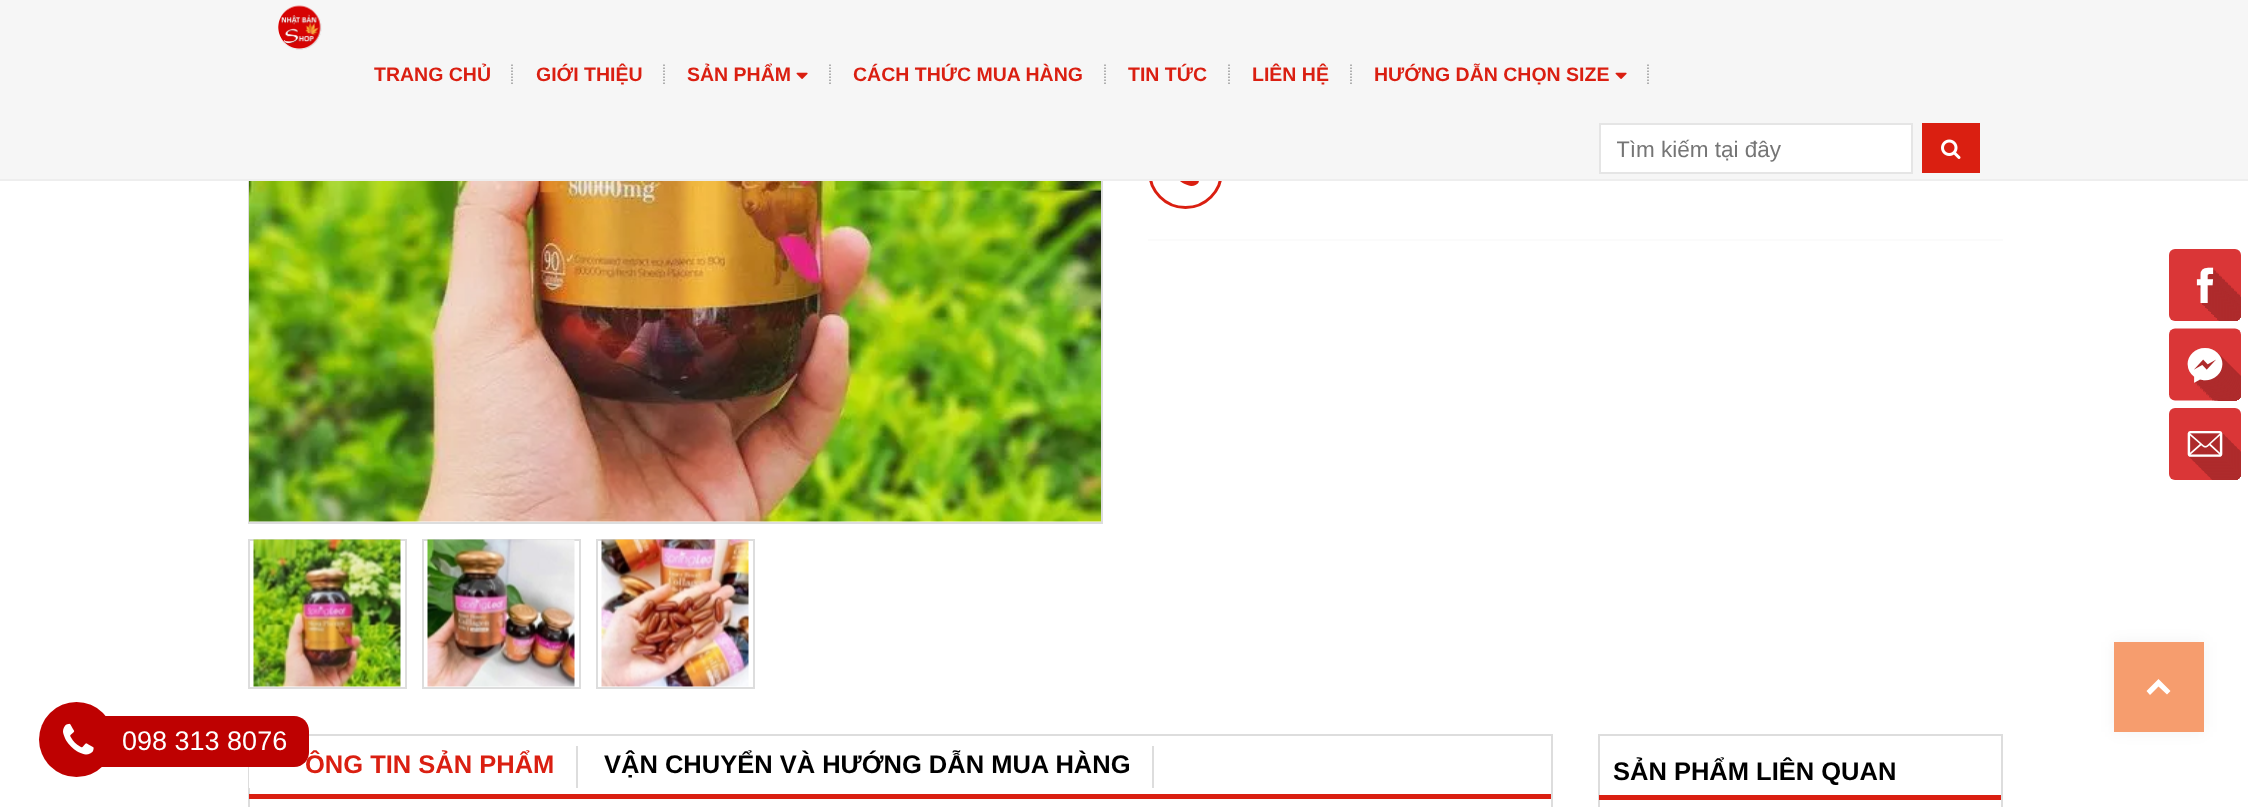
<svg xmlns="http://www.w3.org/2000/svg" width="2248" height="807">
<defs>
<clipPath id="clip1"><rect x="1617" y="137" width="294" height="25"/></clipPath>
</defs>
<rect width="100%" height="100%" fill="#fff"/>
<rect x="249" y="-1" width="853" height="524" fill="none" stroke="#ddd" stroke-width="2"/>
<circle cx="1185.5" cy="171.5" r="36" fill="none" stroke="#da1f11" stroke-width="3"/>
<rect width="2248" height="179" fill="#f6f6f6"/>
<rect y="179" width="2248" height="2" fill="#eee"/>
<image x="278" y="5" width="44" height="45" href="media/1.png"/>
<text x="374" y="81" style="font-family:Liberation Sans;font-size:19.5px;font-weight:bold;fill:#da1f11">TRANG CHỦ</text>
<path d="M512 64.5v19.5" fill="none" stroke="#999" stroke-width="1.5" stroke-dasharray="1.5 1.5"/>
<text x="536" y="81" style="font-family:Liberation Sans;font-size:19.5px;font-weight:bold;fill:#da1f11">GIỚI THIỆU</text>
<path d="M664 64.5v19.5" fill="none" stroke="#999" stroke-width="1.5" stroke-dasharray="1.5 1.5"/>
<text x="687" y="81" style="font-family:Liberation Sans;font-size:19.5px;font-weight:bold;fill:#da1f11">SẢN PHẨM</text>
<image x="796" y="72" width="12" height="7" href="media/2.png"/>
<path d="M830 64.5v19.5" fill="none" stroke="#999" stroke-width="1.5" stroke-dasharray="1.5 1.5"/>
<text x="853" y="81" style="font-family:Liberation Sans;font-size:19.5px;font-weight:bold;fill:#da1f11">CÁCH THỨC MUA HÀNG</text>
<path d="M1105 64.5v19.5" fill="none" stroke="#999" stroke-width="1.5" stroke-dasharray="1.5 1.5"/>
<text x="1128" y="81" style="font-family:Liberation Sans;font-size:19.5px;font-weight:bold;fill:#da1f11">TIN TỨC</text>
<path d="M1229 64.5v19.5" fill="none" stroke="#999" stroke-width="1.5" stroke-dasharray="1.5 1.5"/>
<text x="1252" y="81" style="font-family:Liberation Sans;font-size:19.5px;font-weight:bold;fill:#da1f11">LIÊN HỆ</text>
<path d="M1351 64.5v19.5" fill="none" stroke="#999" stroke-width="1.5" stroke-dasharray="1.5 1.5"/>
<text x="1374" y="81" style="font-family:Liberation Sans;font-size:19.5px;font-weight:bold;fill:#da1f11">HƯỚNG DẪN CHỌN SIZE</text>
<image x="1615" y="72" width="12" height="7" href="media/2.png"/>
<path d="M1648 64.5v19.5" fill="none" stroke="#999" stroke-width="1.5" stroke-dasharray="1.5 1.5"/>
<rect x="1600" y="124" width="312" height="49" fill="#fff" stroke="#e5e5e5" stroke-width="2"/>
<g clip-path="url(#clip1)">
<text x="1616" y="157" style="font-family:Liberation Sans;font-size:22.5px;fill:#757575">Tìm kiếm tại đây</text>
</g>
<rect x="1922" y="123" width="58" height="50" fill="#da1f11"/>
<image x="1941" y="139" width="20" height="20" href="media/3.png"/>
<image x="249" y="181" width="852" height="341" href="media/4.png"/>
<rect x="249" y="540" width="157" height="148" fill="none" stroke="#ddd" stroke-width="2"/>
<image x="253" y="539" width="148" height="148" href="media/5.png"/>
<rect x="423" y="540" width="157" height="148" fill="none" stroke="#ddd" stroke-width="2"/>
<image x="427" y="539" width="148" height="148" href="media/6.png"/>
<rect x="597" y="540" width="157" height="148" fill="none" stroke="#ddd" stroke-width="2"/>
<image x="601" y="539" width="148" height="148" href="media/7.png"/>
<image x="1180" y="181" width="19" height="5" href="media/8.png"/>
<rect x="1148" y="239" width="855" height="2" fill="#fbfbfb"/>
<rect x="249" y="735" width="1303" height="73" fill="none" stroke="#ddd" stroke-width="2"/>
<rect x="249" y="794" width="1302" height="5" fill="#da1f11"/>
<path d="M255 743h317c3.5 0 6 2.5 6 6v39h-329v-39c0-3.5 2.5-6 6-6z" fill="#fff"/>
<rect x="576" y="746" width="2" height="42" fill="#ddd"/>
<text x="305" y="773" style="font-family:Liberation Sans;font-size:25.5px;font-weight:bold;fill:#da1f11">ÔNG TIN SẢN PHẨM</text>
<rect x="1152" y="746" width="2" height="42" fill="#ddd"/>
<text x="604" y="773" style="font-family:Liberation Sans;font-size:25.5px;font-weight:bold;fill:#000">VẬN CHUYỂN VÀ HƯỚNG DẪN MUA HÀNG</text>
<rect x="1599" y="735" width="403" height="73" fill="none" stroke="#ddd" stroke-width="2"/>
<rect x="1599" y="795" width="402" height="5" fill="#da1f11"/>
<text x="1613" y="780" style="font-family:Liberation Sans;font-size:25.5px;font-weight:bold;fill:#000">SẢN PHẨM LIÊN QUAN</text>
<image x="2169" y="249" width="72" height="231" href="media/9.png"/>
<circle cx="76.5" cy="739.5" r="37.5" fill="#be0101"/>
<image x="63" y="723" width="31" height="32" href="media/10.png"/>
<path d="M99 716h195c8.5 0 15 6.5 15 15v21c0 8.5-6.5 15-15 15h-195z" fill="#be0101"/>
<text x="122" y="750" style="font-family:Liberation Sans;font-size:27px;fill:#fff">098 313 8076</text>
<rect x="2114" y="642" width="90" height="90" fill="#0000000d" filter="blur(7.5px)"/>
<rect x="2114" y="642" width="90" height="90" fill="#f69d6e"/>
<path d="M2158.5 679l12 12l-3.5 3.5l-8.5-8l-8.5 8.5l-3.5-4z" fill="#fff"/>
</svg>
